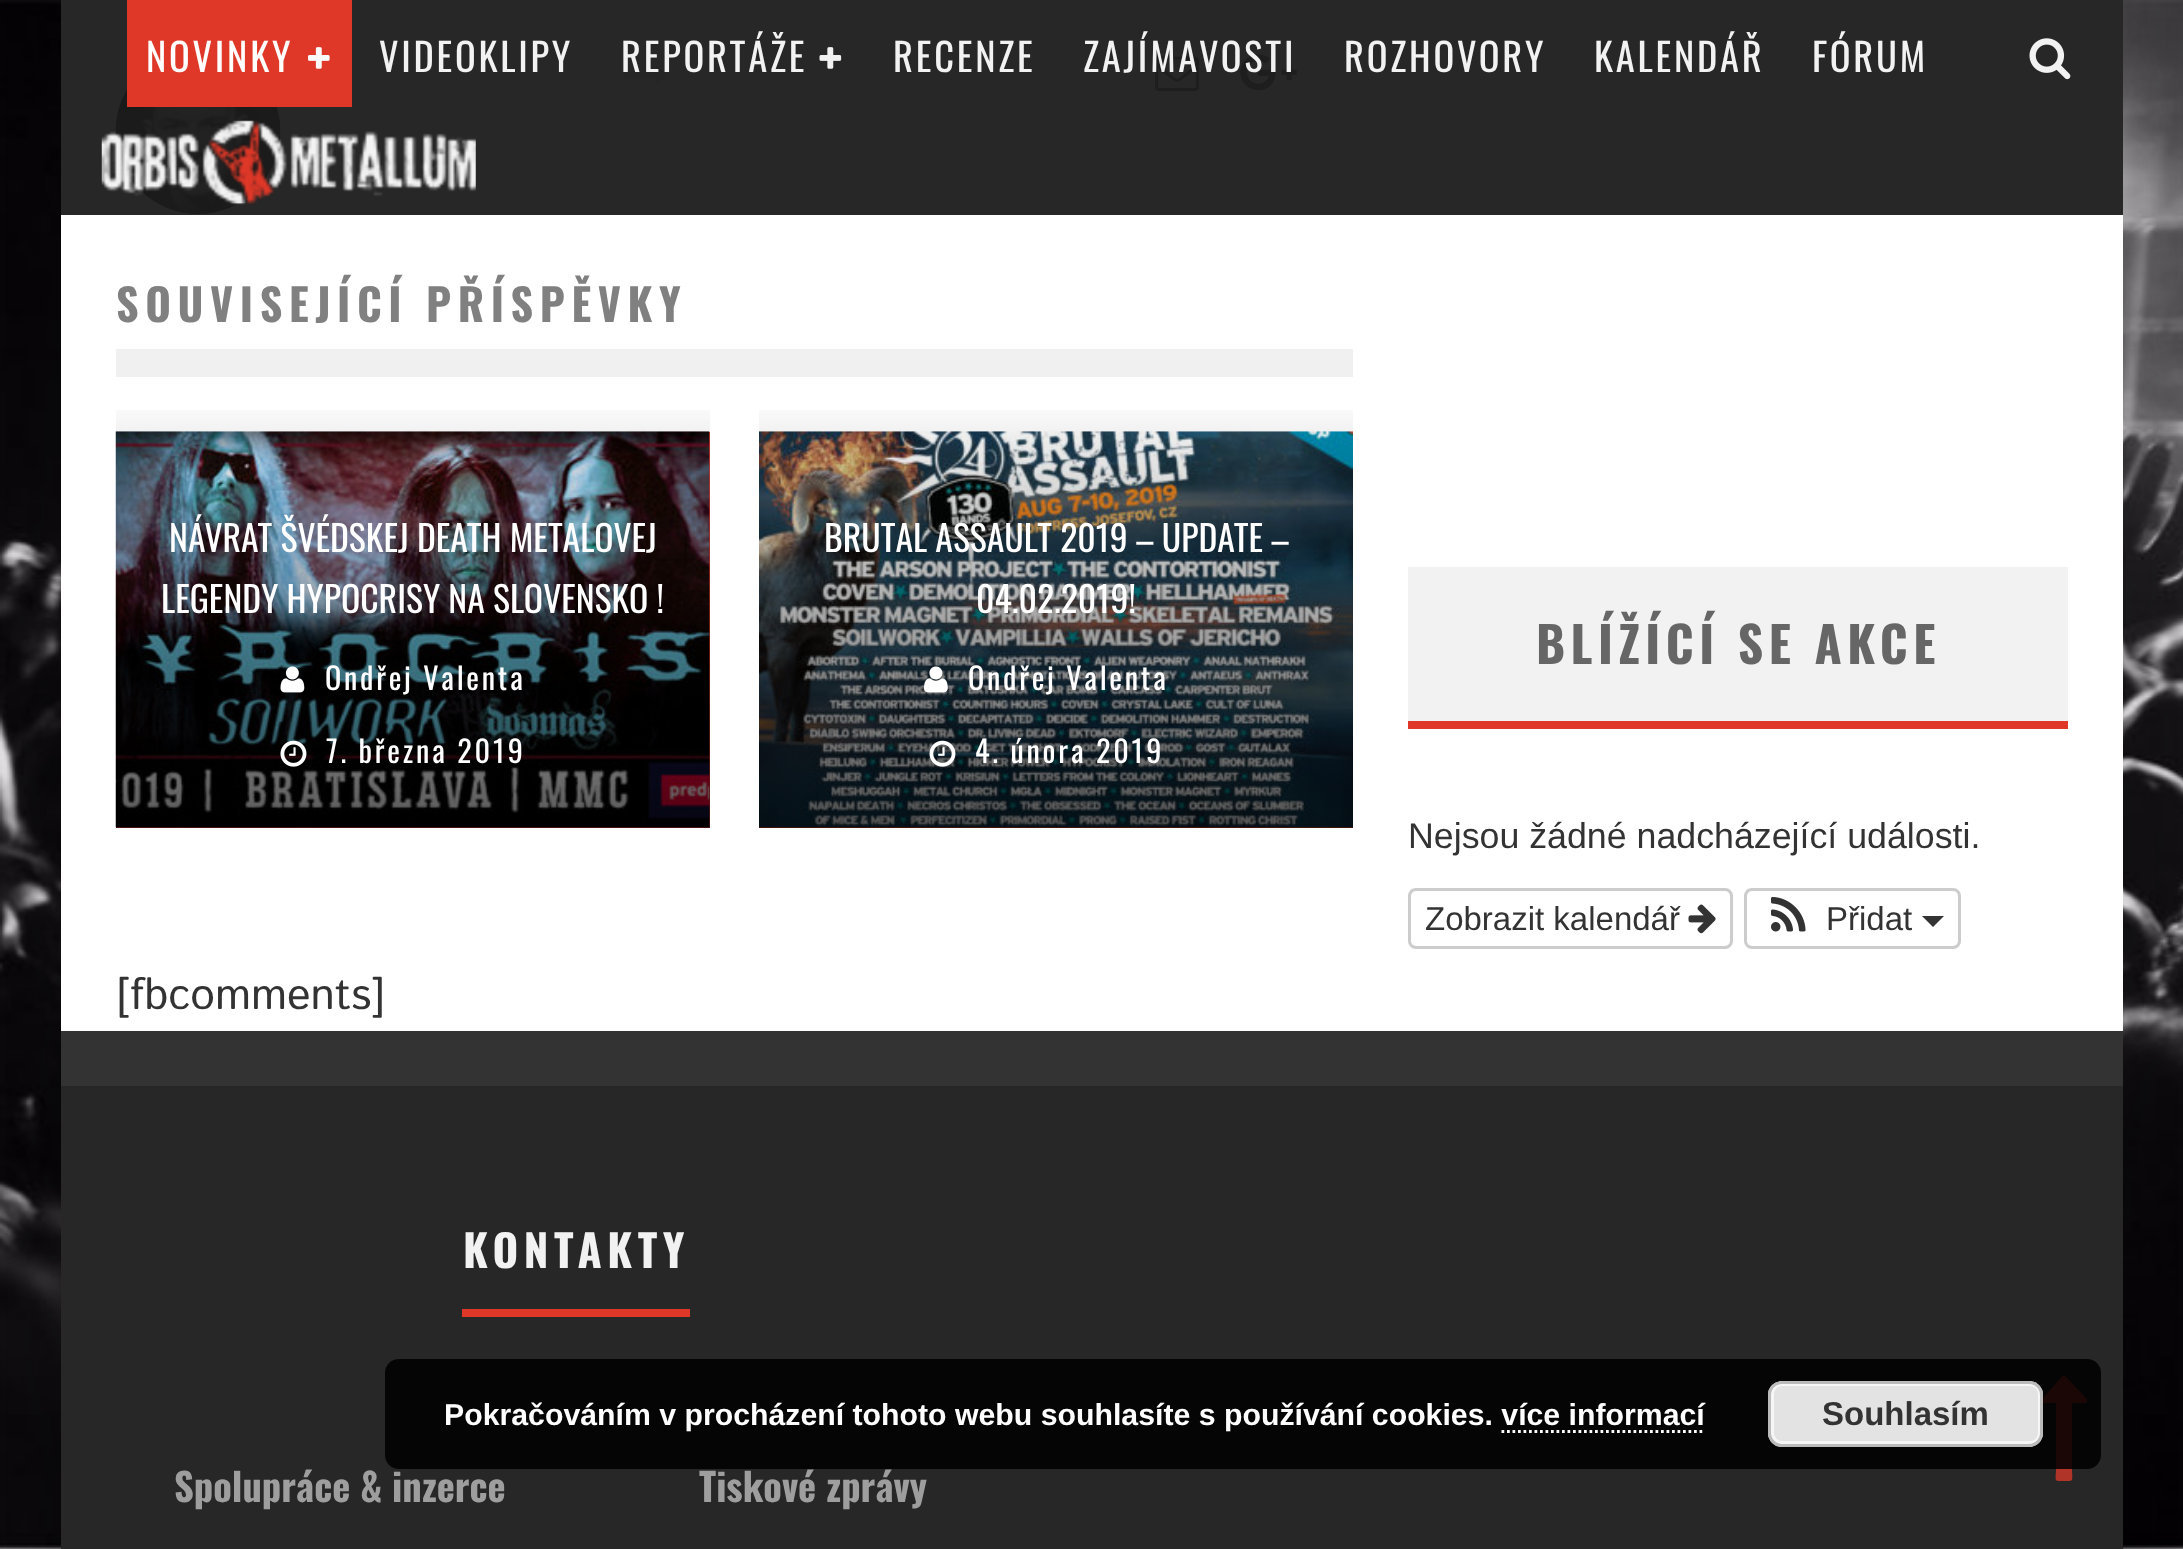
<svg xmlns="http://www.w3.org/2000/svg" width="2183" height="1549">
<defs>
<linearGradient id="g1" gradientUnits="userSpaceOnUse" x1="413" y1="396" x2="413" y2="828"><stop offset="0" stop-color="#000" stop-opacity="0"/><stop offset="1" stop-color="#000" stop-opacity="0.65"/></linearGradient>
<linearGradient id="g2" gradientUnits="userSpaceOnUse" x1="1056" y1="396" x2="1056" y2="828"><stop offset="0" stop-color="#000" stop-opacity="0"/><stop offset="1" stop-color="#000" stop-opacity="0.65"/></linearGradient>
</defs>
<rect width="100%" height="100%" fill="#fff"/>
<image x="0" y="0" width="2183" height="1549" href="media/1.png"/>
<rect x="33" y="-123" width="2063" height="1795" fill="#00000026" filter="blur(41px)"/>
<rect x="88" y="-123" width="2063" height="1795" fill="#00000026" filter="blur(41px)"/>
<rect x="61" width="2062" height="1031" fill="#fff"/>
<image x="624" y="65" width="43" height="20" href="media/6.png"/>
<image x="1155" y="56" width="44" height="36" href="media/7.png"/>
<image x="1240" y="54" width="57" height="37" href="media/8.png"/>
<image x="115" y="90" width="166" height="124" href="media/9.png"/>
<rect x="61" width="2062" height="215" fill="#1b1b1bf2"/>
<rect x="127" width="225" height="107" fill="#df3828"/>
<text x="146" y="72" style="font-family:Oswald;font-size:38.5px;letter-spacing:2.75px;fill:#fff">NOVINKY</text>
<image x="308" y="47" width="22" height="22" href="media/2.png"/>
<text x="379" y="72" style="font-family:Oswald;font-size:38.5px;letter-spacing:2.75px;fill:#f2f2f2">VIDEOKLIPY</text>
<text x="621" y="72" style="font-family:Oswald;font-size:38.5px;letter-spacing:2.75px;fill:#f2f2f2">REPORTÁŽE</text>
<image x="819" y="47" width="23" height="22" href="media/3.png"/>
<text x="893" y="72" style="font-family:Oswald;font-size:38.5px;letter-spacing:2.75px;fill:#f2f2f2">RECENZE</text>
<text x="1083" y="72" style="font-family:Oswald;font-size:38.5px;letter-spacing:2.75px;fill:#f2f2f2">ZAJÍMAVOSTI</text>
<text x="1344" y="72" style="font-family:Oswald;font-size:38.5px;letter-spacing:2.75px;fill:#f2f2f2">ROZHOVORY</text>
<text x="1594" y="72" style="font-family:Oswald;font-size:38.5px;letter-spacing:2.75px;fill:#f2f2f2">KALENDÁŘ</text>
<text x="1812" y="72" style="font-family:Oswald;font-size:38.5px;letter-spacing:2.75px;fill:#f2f2f2">FÓRUM</text>
<image x="2029" y="38" width="42" height="42" href="media/4.png"/>
<image x="101" y="120" width="375" height="85" href="media/5.png"/>
<rect x="61" y="1086" width="2062" height="463" fill="#272727"/>
<path d="M2087 1402c-1 2-12 1-15 1v64c0 15 3 14-8 14c-11 0-8 1-8-14v-64h-9c-1 0-9 1-6-3l18-20c5-6 4-6 10 0l15 16c0 1 4 3 3 6z" fill="#b13428"/>
<rect x="116" y="349" width="1237" height="28" fill="#f0f0f0"/>
<text x="116" y="322" style="font-family:Oswald;font-size:44px;font-weight:bold;letter-spacing:6.6px;fill:#808080">SOUVISEJÍCÍ PŘÍSPĚVKY</text>
<rect x="116" y="432" width="594" height="396" fill="#df3828"/>
<image x="115" y="431" width="595" height="397" href="media/10.png"/>
<rect x="116" y="410" width="594" height="418" fill="url(#g1)"/>
<text x="169" y="552" style="font-family:Oswald;font-size:35.75px;fill:#fff">NÁVRAT ŠVÉDSKEJ DEATH METALOVEJ</text>
<text x="161" y="613" style="font-family:Oswald;font-size:35.75px;fill:#fff">LEGENDY HYPOCRISY NA SLOVENSKO !</text>
<image x="280" y="666" width="25" height="27" href="media/11.png"/>
<text x="325" y="690" style="font-family:Oswald;font-size:30.25px;letter-spacing:2.75px;fill:#fff">Ondřej Valenta</text>
<image x="280" y="740" width="27" height="27" href="media/12.png"/>
<text x="326" y="763" style="font-family:Oswald;font-size:30.25px;letter-spacing:2.75px;fill:#fff">7. března 2019</text>
<rect x="759" y="827" width="594" height="1" fill="#df3828"/>
<image x="759" y="431" width="594" height="397" href="media/13.png"/>
<rect x="759" y="410" width="594" height="418" fill="url(#g2)"/>
<text x="824" y="552" style="font-family:Oswald;font-size:35.75px;fill:#fff">BRUTAL ASSAULT 2019 – UPDATE –</text>
<text x="976" y="613" style="font-family:Oswald;font-size:35.75px;fill:#fff">04.02.2019!</text>
<image x="924" y="666" width="24" height="27" href="media/14.png"/>
<text x="968" y="690" style="font-family:Oswald;font-size:30.25px;letter-spacing:2.75px;fill:#fff">Ondřej Valenta</text>
<image x="929" y="740" width="27" height="27" href="media/15.png"/>
<text x="975" y="763" style="font-family:Oswald;font-size:30.25px;letter-spacing:2.75px;fill:#fff">4. února 2019</text>
<text x="116" y="1009" style="font-family:Istok Web;font-size:44px;fill:#333">[fbcomments]</text>
<rect x="1408" y="567" width="660" height="154" fill="#f2f2f2"/>
<rect x="1408" y="721" width="660" height="8" fill="#df3828"/>
<text x="1536" y="664" style="font-family:Oswald;font-size:49.5px;font-weight:bold;letter-spacing:5.5px;fill:#666">BLÍŽÍCÍ SE AKCE</text>
<text x="1408" y="848" style="font-family:Liberation Sans;font-size:35.75px;fill:#333">Nejsou žádné nadcházející události.</text>
<rect x="1409.5" y="889.5" width="322" height="58" rx="6.5" fill="none" stroke="#ccc" stroke-width="3"/>
<text x="1425" y="930" style="font-family:Liberation Sans;font-size:33px;fill:#333">Zobrazit kalendář</text>
<image x="1688" y="904" width="28" height="30" href="media/16.png"/>
<rect x="1745.5" y="889.5" width="214" height="58" rx="6.5" fill="none" stroke="#ccc" stroke-width="3"/>
<image x="1771" y="896" width="35" height="36" href="media/17.png"/>
<text x="1826" y="930" style="font-family:Liberation Sans;font-size:33px;fill:#333">Přidat</text>
<path d="M1922 916h22l-11 11z" fill="#333"/>
<rect x="61" y="1031" width="2062" height="55" fill="#333"/>
<text x="463" y="1268" style="font-family:Oswald;font-size:44px;font-weight:bold;letter-spacing:5.5px;fill:#f2f2f2">KONTAKTY</text>
<rect x="462" y="1309" width="228" height="8" fill="#df3828"/>
<text x="174" y="1502" style="font-family:Oswald;font-size:38.5px;font-weight:bold;fill:#9e9e9e">Spolupráce &amp; inzerce</text>
<text x="699" y="1502" style="font-family:Oswald;font-size:38.5px;font-weight:bold;fill:#9e9e9e">Tiskové zprávy</text>
<rect x="385" y="1359" width="1716" height="110" rx="14" fill="#000000d9"/>
<text x="444" y="1425" style="font-family:Liberation Sans;font-size:30.25px;font-weight:bold;fill:#fff">Pokračováním v procházení tohoto webu souhlasíte s používání cookies. více informací</text>
<rect x="1768" y="1381" width="275" height="66" rx="14" fill="#e3e3e3"/>
<rect x="1772.5" y="1384.5" width="267" height="58" rx="9.5" fill="none" stroke="#f6f6f6" stroke-width="3"/>
<rect x="1769.5" y="1382.5" width="272" height="63" rx="12.5" fill="none" stroke="#bbb" stroke-width="3"/>
<text x="1822" y="1425" style="font-family:Liberation Sans;font-size:33px;font-weight:bold;fill:#333">Souhlasím</text>
<path d="M1501.5 1431.5h203.5" fill="none" stroke="#fff" stroke-width="2.8" stroke-dasharray="2.75 2.75"/>
</svg>
